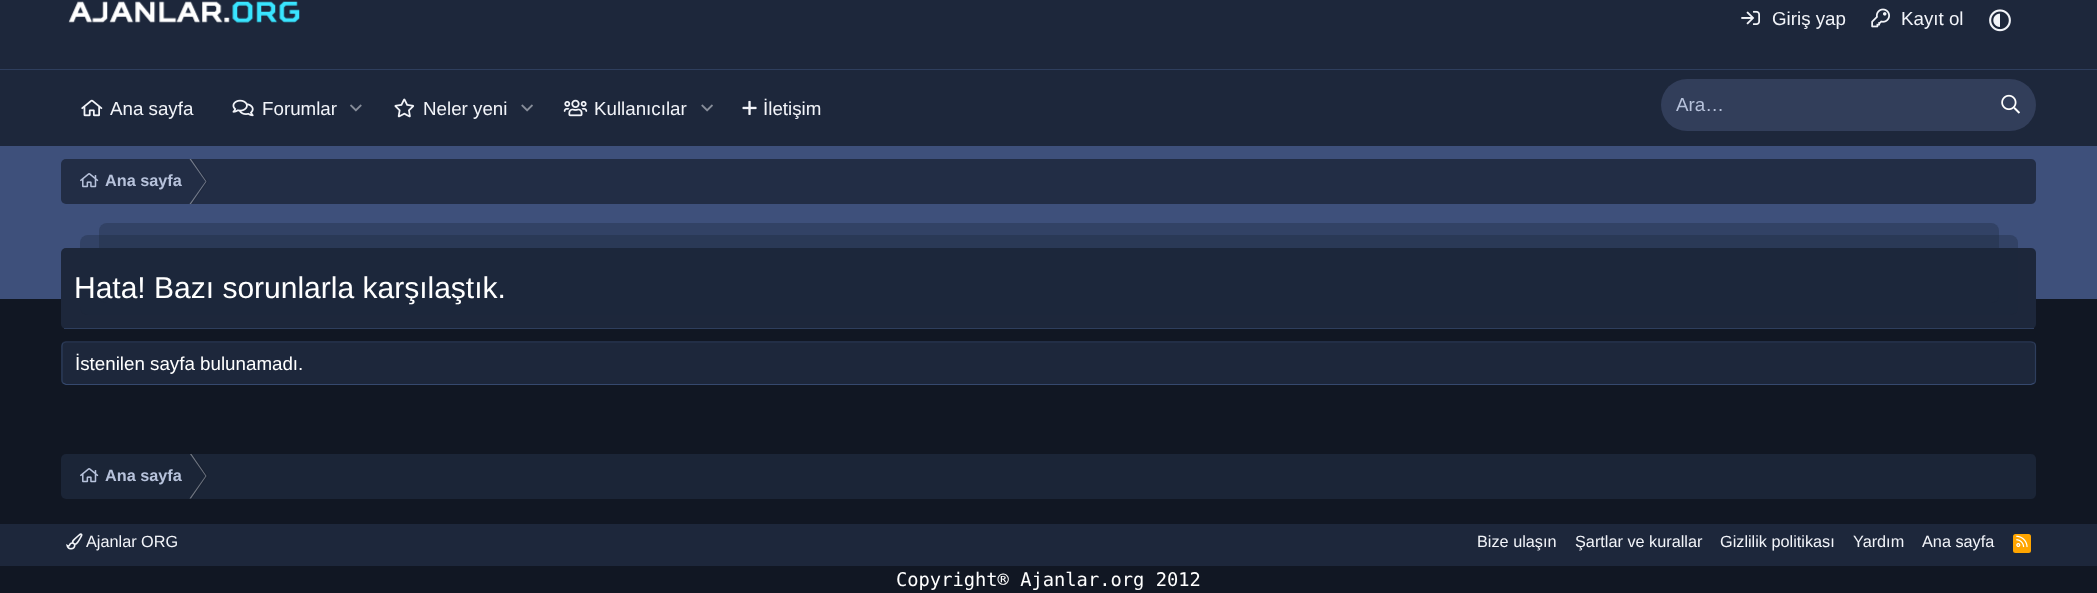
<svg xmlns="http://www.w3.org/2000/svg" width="2097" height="593">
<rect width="100%" height="100%" fill="#111723"/>
<rect width="2097" height="69" fill="#1d273b"/>
<rect y="69" width="2097" height="1" fill="#2e3e5d"/>
<image x="68" y="1" width="232" height="22" href="media/1.png"/>
<image x="1741" y="10" width="19" height="15" href="media/2.png"/>
<text x="1772" y="25" style="font-family:Liberation Sans;font-size:18.75px;fill:#f2f4f9">Giriş yap</text>
<image x="1871" y="8" width="19" height="20" href="media/3.png"/>
<text x="1901" y="25" style="font-family:Liberation Sans;font-size:18.75px;fill:#f2f4f9">Kayıt ol</text>
<image x="1989" y="9" width="22" height="23" href="media/4.png"/>
<rect y="70" width="2097" height="76" fill="#1d273b"/>
<image x="81" y="99" width="22" height="18" href="media/5.png"/>
<text x="110" y="115" style="font-family:Liberation Sans;font-size:18.75px;fill:#f2f4f9">Ana sayfa</text>
<image x="232" y="99" width="22" height="18" href="media/6.png"/>
<text x="262" y="115" style="font-family:Liberation Sans;font-size:18.75px;fill:#f2f4f9">Forumlar</text>
<image x="350" y="104" width="12" height="8" href="media/7.png"/>
<image x="394" y="98" width="21" height="20" href="media/8.png"/>
<text x="423" y="115" style="font-family:Liberation Sans;font-size:18.75px;fill:#f2f4f9">Neler yeni</text>
<image x="521" y="104" width="12" height="8" href="media/9.png"/>
<image x="563" y="99" width="25" height="18" href="media/10.png"/>
<text x="594" y="115" style="font-family:Liberation Sans;font-size:18.75px;fill:#f2f4f9">Kullanıcılar</text>
<image x="701" y="104" width="12" height="8" href="media/9.png"/>
<image x="742" y="100" width="15" height="15" href="media/11.png"/>
<text x="763" y="115" style="font-family:Liberation Sans;font-size:18.75px;fill:#f2f4f9">İletişim</text>
<rect x="1661" y="79" width="375" height="52" rx="26" fill="#323e5a"/>
<text x="1676" y="111" style="font-family:Liberation Sans;font-size:18.75px;fill:#b7c2db">Ara…</text>
<image x="2001" y="94" width="19" height="20" href="media/12.png"/>
<rect y="146" width="2097" height="153" fill="#3e507b"/>
<rect x="61" y="159" width="1975" height="45" rx="5" fill="#222d45"/>
<image x="80" y="173" width="19" height="15" href="media/13.png"/>
<text x="105" y="186" style="font-family:Liberation Sans;font-size:16.25px;font-weight:bold;fill:#b7c2db">Ana sayfa</text>
<path d="M189.5 159h1.5l15.5 22.5h-1z" fill="#767d8c"/>
<path d="M191 159h1l16 22.5h-1.5z" fill="#0000001a"/>
<path d="M205.5 181.5h1l-15.5 22.5h-1.5z" fill="#767d8c"/>
<path d="M206.5 181.5h1.5l-16 22.5h-1z" fill="#0000001a"/>
<rect x="61" y="248" width="1975" height="81" rx="5" fill="#1d273b"/>
<rect x="64" y="328" width="1970" height="1" fill="#2e3e5d"/>
<rect x="80" y="235" width="1938" height="80" rx="8" fill="#1d273b59"/>
<rect x="99" y="223" width="1900" height="80" rx="8" fill="#1d273b59"/>
<text x="74" y="298" style="font-family:Liberation Sans;font-size:30px;fill:#fff">Hata! Bazı sorunlarla karşılaştık.</text>
<rect x="61" y="341" width="1975" height="44" rx="5" fill="#1d273b"/>
<path d="M63 343l3-1h1965l3.5 1" fill="none" stroke="#293753" stroke-width="1.2"/>
<path d="M2034.5 343c.5 1 1 2 1 3v34c0 1-.5 2.5-1 3" fill="none" stroke="#2e3e5d" stroke-width="1.2"/>
<path d="M2034.5 383l-3.5 1.5h-1965l-3-1.5" fill="none" stroke="#36496e" stroke-width="1.2"/>
<path d="M63 383c-.5-.5-1-2-1-3v-34c0-1 .5-2 1-3" fill="none" stroke="#2e3e5d" stroke-width="1.2"/>
<text x="75" y="370" style="font-family:Liberation Sans;font-size:18.75px;fill:#fff">İstenilen sayfa bulunamadı.</text>
<rect x="61" y="454" width="1975" height="45" rx="5" fill="#1b2537"/>
<image x="80" y="468" width="19" height="15" href="media/14.png"/>
<text x="105" y="481" style="font-family:Liberation Sans;font-size:16.25px;font-weight:bold;fill:#b7c2db">Ana sayfa</text>
<path d="M191.5 454l15 22h-1l-15.5-22z" fill="#727883"/>
<path d="M192.5 454l15.5 22h-1.5l-15-22z" fill="#0000001a"/>
<path d="M205.5 476h1l-15.5 22.5h-1.5z" fill="#727883"/>
<path d="M206.5 476h1.5l-16 22.5h-1z" fill="#0000001a"/>
<rect y="524" width="2097" height="42" fill="#1d273b"/>
<image x="66" y="533" width="17" height="17" href="media/15.png"/>
<text x="86" y="547" style="font-family:Liberation Sans;font-size:16.25px;fill:#f2f4f9">Ajanlar ORG</text>
<text x="1477" y="547" style="font-family:Liberation Sans;font-size:16.25px;fill:#f2f4f9">Bize ulaşın</text>
<text x="1575" y="547" style="font-family:Liberation Sans;font-size:16.25px;fill:#f2f4f9">Şartlar ve kurallar</text>
<text x="1720" y="547" style="font-family:Liberation Sans;font-size:16.25px;fill:#f2f4f9">Gizlilik politikası</text>
<text x="1853" y="547" style="font-family:Liberation Sans;font-size:16.25px;fill:#f2f4f9">Yardım</text>
<text x="1922" y="547" style="font-family:Liberation Sans;font-size:16.25px;fill:#f2f4f9">Ana sayfa</text>
<rect x="2013" y="534" width="18" height="19" rx="2.5" fill="#ffa500"/>
<image x="2016" y="535" width="12" height="13" href="media/16.png"/>
<text x="896" y="586" style="font-family:DejaVu Sans Mono;font-size:18.75px;fill:#fff">Copyright® Ajanlar.org 2012</text>
</svg>
